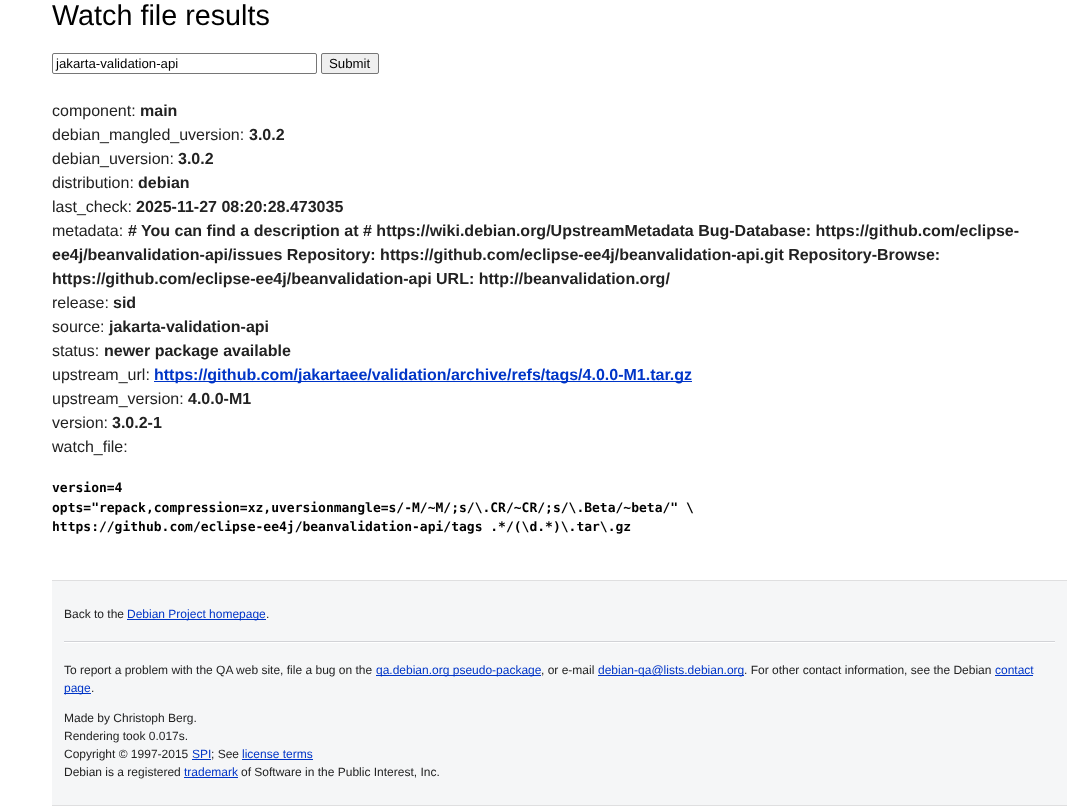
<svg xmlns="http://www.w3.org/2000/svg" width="1077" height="806">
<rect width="100%" height="100%" fill="#fff"/>
<text x="52" y="25" style="font-family:Liberation Sans;font-size:28.75px;fill:#000">Watch file results</text>
<rect x="52.5" y="53.5" width="264" height="20" rx="1.5" fill="none" stroke="#767676"/>
<text x="56" y="68" style="font-family:Liberation Sans;font-size:13.25px;fill:#000">jakarta-validation-api</text>
<rect x="321.5" y="53.5" width="57" height="20" rx="1.5" fill="#efefef" stroke="#767676"/>
<text x="329" y="68" style="font-family:Liberation Sans;font-size:13.25px;fill:#000">Submit</text>
<text x="52" y="116" style="font-family:Liberation Sans;font-size:16px;fill:#222">component:</text>
<text x="140" y="116" style="font-family:Liberation Sans;font-size:16px;font-weight:bold;fill:#222">main</text>
<text x="52" y="140" style="font-family:Liberation Sans;font-size:16px;fill:#222">debian_mangled_uversion:</text>
<text x="249" y="140" style="font-family:Liberation Sans;font-size:16px;font-weight:bold;fill:#222">3.0.2</text>
<text x="52" y="164" style="font-family:Liberation Sans;font-size:16px;fill:#222">debian_uversion:</text>
<text x="178" y="164" style="font-family:Liberation Sans;font-size:16px;font-weight:bold;fill:#222">3.0.2</text>
<text x="52" y="188" style="font-family:Liberation Sans;font-size:16px;fill:#222">distribution:</text>
<text x="138" y="188" style="font-family:Liberation Sans;font-size:16px;font-weight:bold;fill:#222">debian</text>
<text x="52" y="212" style="font-family:Liberation Sans;font-size:16px;fill:#222">last_check:</text>
<text x="136" y="212" style="font-family:Liberation Sans;font-size:16px;font-weight:bold;fill:#222">2025-11-27 08:20:28.473035</text>
<text x="52" y="236" style="font-family:Liberation Sans;font-size:16px;fill:#222">metadata:</text>
<text x="128" y="236" style="font-family:Liberation Sans;font-size:16px;font-weight:bold;fill:#222"># You can find a description at # https://wiki.debian.org/UpstreamMetadata Bug-Database: https://github.com/eclipse-</text>
<text x="52" y="260" style="font-family:Liberation Sans;font-size:16px;font-weight:bold;fill:#222">ee4j/beanvalidation-api/issues Repository: https://github.com/eclipse-ee4j/beanvalidation-api.git Repository-Browse:</text>
<text x="52" y="284" style="font-family:Liberation Sans;font-size:16px;font-weight:bold;fill:#222">https://github.com/eclipse-ee4j/beanvalidation-api URL: http://beanvalidation.org/</text>
<text x="52" y="308" style="font-family:Liberation Sans;font-size:16px;fill:#222">release:</text>
<text x="113" y="308" style="font-family:Liberation Sans;font-size:16px;font-weight:bold;fill:#222">sid</text>
<text x="52" y="332" style="font-family:Liberation Sans;font-size:16px;fill:#222">source:</text>
<text x="109" y="332" style="font-family:Liberation Sans;font-size:16px;font-weight:bold;fill:#222">jakarta-validation-api</text>
<text x="52" y="356" style="font-family:Liberation Sans;font-size:16px;fill:#222">status:</text>
<text x="104" y="356" style="font-family:Liberation Sans;font-size:16px;font-weight:bold;fill:#222">newer package available</text>
<text x="52" y="380" style="font-family:Liberation Sans;font-size:16px;fill:#222">upstream_url:</text>
<rect x="154" y="381" width="538" height="1" fill="#0035c7"/>
<text x="154" y="380" style="font-family:Liberation Sans;font-size:16px;font-weight:bold;fill:#0035c7">https://github.com/jakartaee/validation/archive/refs/tags/4.0.0-M1.tar.gz</text>
<text x="52" y="404" style="font-family:Liberation Sans;font-size:16px;fill:#222">upstream_version:</text>
<text x="188" y="404" style="font-family:Liberation Sans;font-size:16px;font-weight:bold;fill:#222">4.0.0-M1</text>
<text x="52" y="428" style="font-family:Liberation Sans;font-size:16px;fill:#222">version:</text>
<text x="112" y="428" style="font-family:Liberation Sans;font-size:16px;font-weight:bold;fill:#222">3.0.2-1</text>
<text x="52" y="452" style="font-family:Liberation Sans;font-size:16px;fill:#222">watch_file:</text>
<text x="52" y="492" style="font-family:DejaVu Sans Mono;font-size:13px;font-weight:bold;fill:#000">version=4</text>
<text x="52" y="512" style="font-family:DejaVu Sans Mono;font-size:13px;font-weight:bold;fill:#000">opts="repack,compression=xz,uversionmangle=s/-M/~M/;s/\.CR/~CR/;s/\.Beta/~beta/" \</text>
<text x="52" y="531" style="font-family:DejaVu Sans Mono;font-size:13px;font-weight:bold;fill:#000">https://github.com/eclipse-ee4j/beanvalidation-api/tags .*/(\d.*)\.tar\.gz</text>
<rect x="52" y="581" width="1015" height="224" fill="#f5f6f7"/>
<rect x="52" y="580" width="1015" height="1" fill="#dfdfe0"/>
<rect x="52" y="805" width="1015" height="1" fill="#dfdfe0"/>
<text x="64" y="618" style="font-family:Liberation Sans;font-size:12px;fill:#222">Back to the</text>
<rect x="127" y="619" width="139" height="1" fill="#0035c7"/>
<text x="127" y="618" style="font-family:Liberation Sans;font-size:12px;fill:#0035c7">Debian Project homepage</text>
<text x="266" y="618" style="font-family:Liberation Sans;font-size:12px;fill:#222">.</text>
<rect x="64" y="641" width="991" height="1" fill="#d2d3d7"/>
<rect x="64" y="642" width="991" height="1" fill="#fff"/>
<text x="64" y="674" style="font-family:Liberation Sans;font-size:12px;fill:#222">To report a problem with the QA web site, file a bug on the</text>
<rect x="376" y="675" width="165" height="1" fill="#0035c7"/>
<text x="376" y="674" style="font-family:Liberation Sans;font-size:12px;fill:#0035c7">qa.debian.org pseudo-package</text>
<text x="541" y="674" style="font-family:Liberation Sans;font-size:12px;fill:#222">, or e-mail</text>
<rect x="598" y="675" width="146" height="1" fill="#0035c7"/>
<text x="598" y="674" style="font-family:Liberation Sans;font-size:12px;fill:#0035c7">debian-qa@lists.debian.org</text>
<text x="744" y="674" style="font-family:Liberation Sans;font-size:12px;fill:#222">. For other contact information, see the Debian</text>
<text x="995" y="674" style="font-family:Liberation Sans;font-size:12px;fill:#0035c7">contact</text>
<rect x="995" y="675" width="38" height="1" fill="#0035c7"/>
<rect x="64" y="693" width="27" height="1" fill="#0035c7"/>
<text x="64" y="692" style="font-family:Liberation Sans;font-size:12px;fill:#0035c7">page</text>
<text x="91" y="692" style="font-family:Liberation Sans;font-size:12px;fill:#222">.</text>
<text x="64" y="722" style="font-family:Liberation Sans;font-size:12px;fill:#222">Made by Christoph Berg.</text>
<text x="64" y="740" style="font-family:Liberation Sans;font-size:12px;fill:#222">Rendering took 0.017s.</text>
<text x="64" y="758" style="font-family:Liberation Sans;font-size:12px;fill:#222">Copyright © 1997-2015</text>
<text x="192" y="758" style="font-family:Liberation Sans;font-size:12px;fill:#0035c7">SPI</text>
<rect x="192" y="759" width="19" height="1" fill="#0035c7"/>
<text x="211" y="758" style="font-family:Liberation Sans;font-size:12px;fill:#222">; See</text>
<text x="242" y="758" style="font-family:Liberation Sans;font-size:12px;fill:#0035c7">license terms</text>
<rect x="242" y="759" width="71" height="1" fill="#0035c7"/>
<text x="64" y="776" style="font-family:Liberation Sans;font-size:12px;fill:#222">Debian is a registered</text>
<text x="184" y="776" style="font-family:Liberation Sans;font-size:12px;fill:#0035c7">trademark</text>
<rect x="184" y="777" width="54" height="1" fill="#0035c7"/>
<text x="241" y="776" style="font-family:Liberation Sans;font-size:12px;fill:#222">of Software in the Public Interest, Inc.</text>
</svg>
